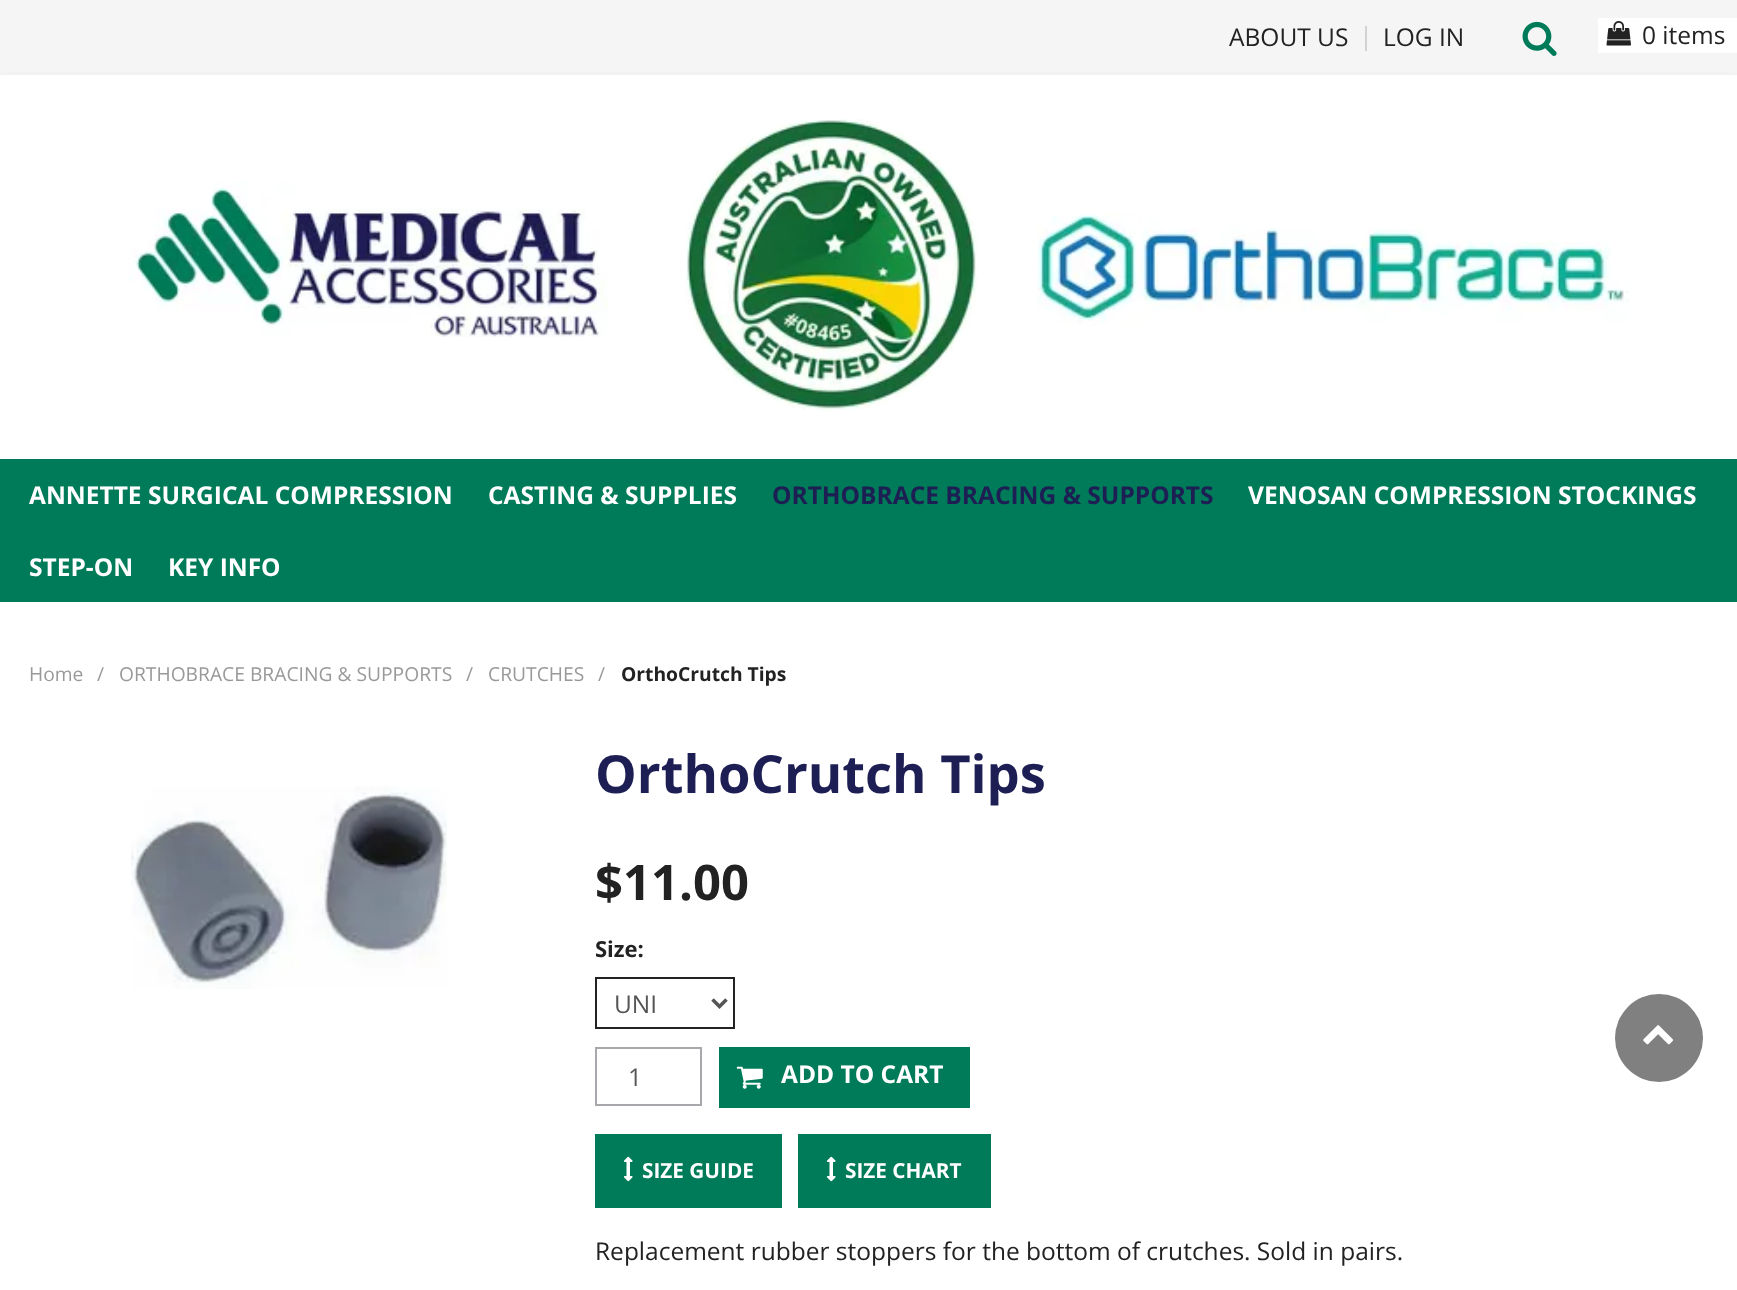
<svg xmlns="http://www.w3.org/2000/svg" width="1737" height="1290">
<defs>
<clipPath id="clip1"><path d="M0 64h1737v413h-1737zm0 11h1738v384h-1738z" clip-rule="evenodd"/></clipPath>
</defs>
<rect width="100%" height="100%" fill="#fff"/>
<rect width="1737" height="75" fill="#f5f5f5"/>
<rect x="1365" y="26" width="2" height="25" fill="#d2d2d2"/>
<text x="1229" y="46" style="font-family:Open Sans;font-size:24.5px;fill:#222">ABOUT US</text>
<text x="1383" y="46" style="font-family:Open Sans;font-size:24.5px;fill:#222">LOG IN</text>
<image x="1522" y="21" width="35" height="35" href="media/1.png"/>
<rect x="1598" y="18" width="139" height="35" fill="#fff"/>
<image x="1606" y="21" width="25" height="25" href="media/2.png"/>
<text x="1642" y="44" style="font-family:Open Sans;font-size:24.5px;fill:#222">0 items</text>
<g clip-path="url(#clip1)">
<rect y="79" width="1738" height="383" fill="#0000001a" filter="blur(4.5px)"/>
</g>
<rect y="458" width="1737" height="1" fill="#ffffffcc"/>
<image x="128" y="181" width="480" height="156" href="media/3.png"/>
<image x="685" y="119" width="293" height="292" href="media/4.png"/>
<image x="1036" y="213" width="593" height="114" href="media/5.png"/>
<rect y="459" width="1737" height="143" fill="#007b59"/>
<text x="29" y="504" style="font-family:Open Sans;font-size:24.5px;font-weight:bold;fill:#fff">ANNETTE SURGICAL COMPRESSION</text>
<text x="488" y="504" style="font-family:Open Sans;font-size:24.5px;font-weight:bold;fill:#fff">CASTING &amp; SUPPLIES</text>
<text x="772" y="504" style="font-family:Open Sans;font-size:24.5px;font-weight:bold;fill:#1d1e54">ORTHOBRACE BRACING &amp; SUPPORTS</text>
<text x="1248" y="504" style="font-family:Open Sans;font-size:24.5px;font-weight:bold;fill:#fff">VENOSAN COMPRESSION STOCKINGS</text>
<text x="29" y="576" style="font-family:Open Sans;font-size:24.5px;font-weight:bold;fill:#fff">STEP-ON</text>
<text x="168" y="576" style="font-family:Open Sans;font-size:24.5px;font-weight:bold;fill:#fff">KEY INFO</text>
<text x="29" y="681" style="font-family:Open Sans;font-size:19.25px;fill:#999">Home</text>
<text x="97" y="681" style="font-family:Open Sans;font-size:19.25px;fill:#999">/</text>
<text x="119" y="681" style="font-family:Open Sans;font-size:19.25px;fill:#999">ORTHOBRACE BRACING &amp; SUPPORTS</text>
<text x="466" y="681" style="font-family:Open Sans;font-size:19.25px;fill:#999">/</text>
<text x="488" y="681" style="font-family:Open Sans;font-size:19.25px;fill:#999">CRUTCHES</text>
<text x="598" y="681" style="font-family:Open Sans;font-size:19.25px;fill:#999">/</text>
<text x="621" y="681" style="font-family:Open Sans;font-size:19.25px;font-weight:bold;fill:#222">OrthoCrutch Tips</text>
<image x="131" y="786" width="316" height="203" href="media/6.png"/>
<text x="595" y="793" style="font-family:Open Sans;font-size:52.5px;font-weight:bold;fill:#1d1e54">OrthoCrutch Tips</text>
<text x="595" y="900" style="font-family:Open Sans;font-size:49px;font-weight:bold;fill:#222">$11.00</text>
<text x="595" y="957" style="font-family:Open Sans;font-size:22px;font-weight:bold;fill:#222">Size:</text>
<rect x="596" y="978" width="138" height="50" fill="none" stroke="#222" stroke-width="2"/>
<path d="M712.5 999.5l7 7l7-7" fill="none" stroke="#555" stroke-width="3.5"/>
<text x="614" y="1013" style="font-family:Open Sans;font-size:24.5px;fill:#555">UNI</text>
<rect x="596" y="1048" width="105" height="57" fill="none" stroke="#a6a8ab" stroke-width="2"/>
<text x="628" y="1086" style="font-family:Open Sans;font-size:24.5px;fill:#555">1</text>
<rect x="719" y="1047" width="251" height="61" fill="#007b59"/>
<image x="736" y="1066" width="27" height="23" href="media/7.png"/>
<text x="781" y="1083" style="font-family:Open Sans;font-size:24.5px;font-weight:bold;fill:#fff">ADD TO CART</text>
<rect x="595" y="1134" width="187" height="74" fill="#007b59"/>
<image x="623" y="1156" width="10" height="26" href="media/8.png"/>
<text x="642" y="1178" style="font-family:Open Sans;font-size:20.75px;font-weight:bold;fill:#fff">SIZE GUIDE</text>
<rect x="798" y="1134" width="193" height="74" fill="#007b59"/>
<image x="826" y="1156" width="10" height="26" href="media/8.png"/>
<text x="845" y="1178" style="font-family:Open Sans;font-size:20.75px;font-weight:bold;fill:#fff">SIZE CHART</text>
<text x="595" y="1260" style="font-family:Open Sans;font-size:24.5px;fill:#222">Replacement rubber stoppers for the bottom of crutches. Sold in pairs.</text>
<circle cx="1659" cy="1038" r="44" fill="#808080"/>
<image x="1643" y="1025" width="30" height="20" href="media/9.png"/>
</svg>
